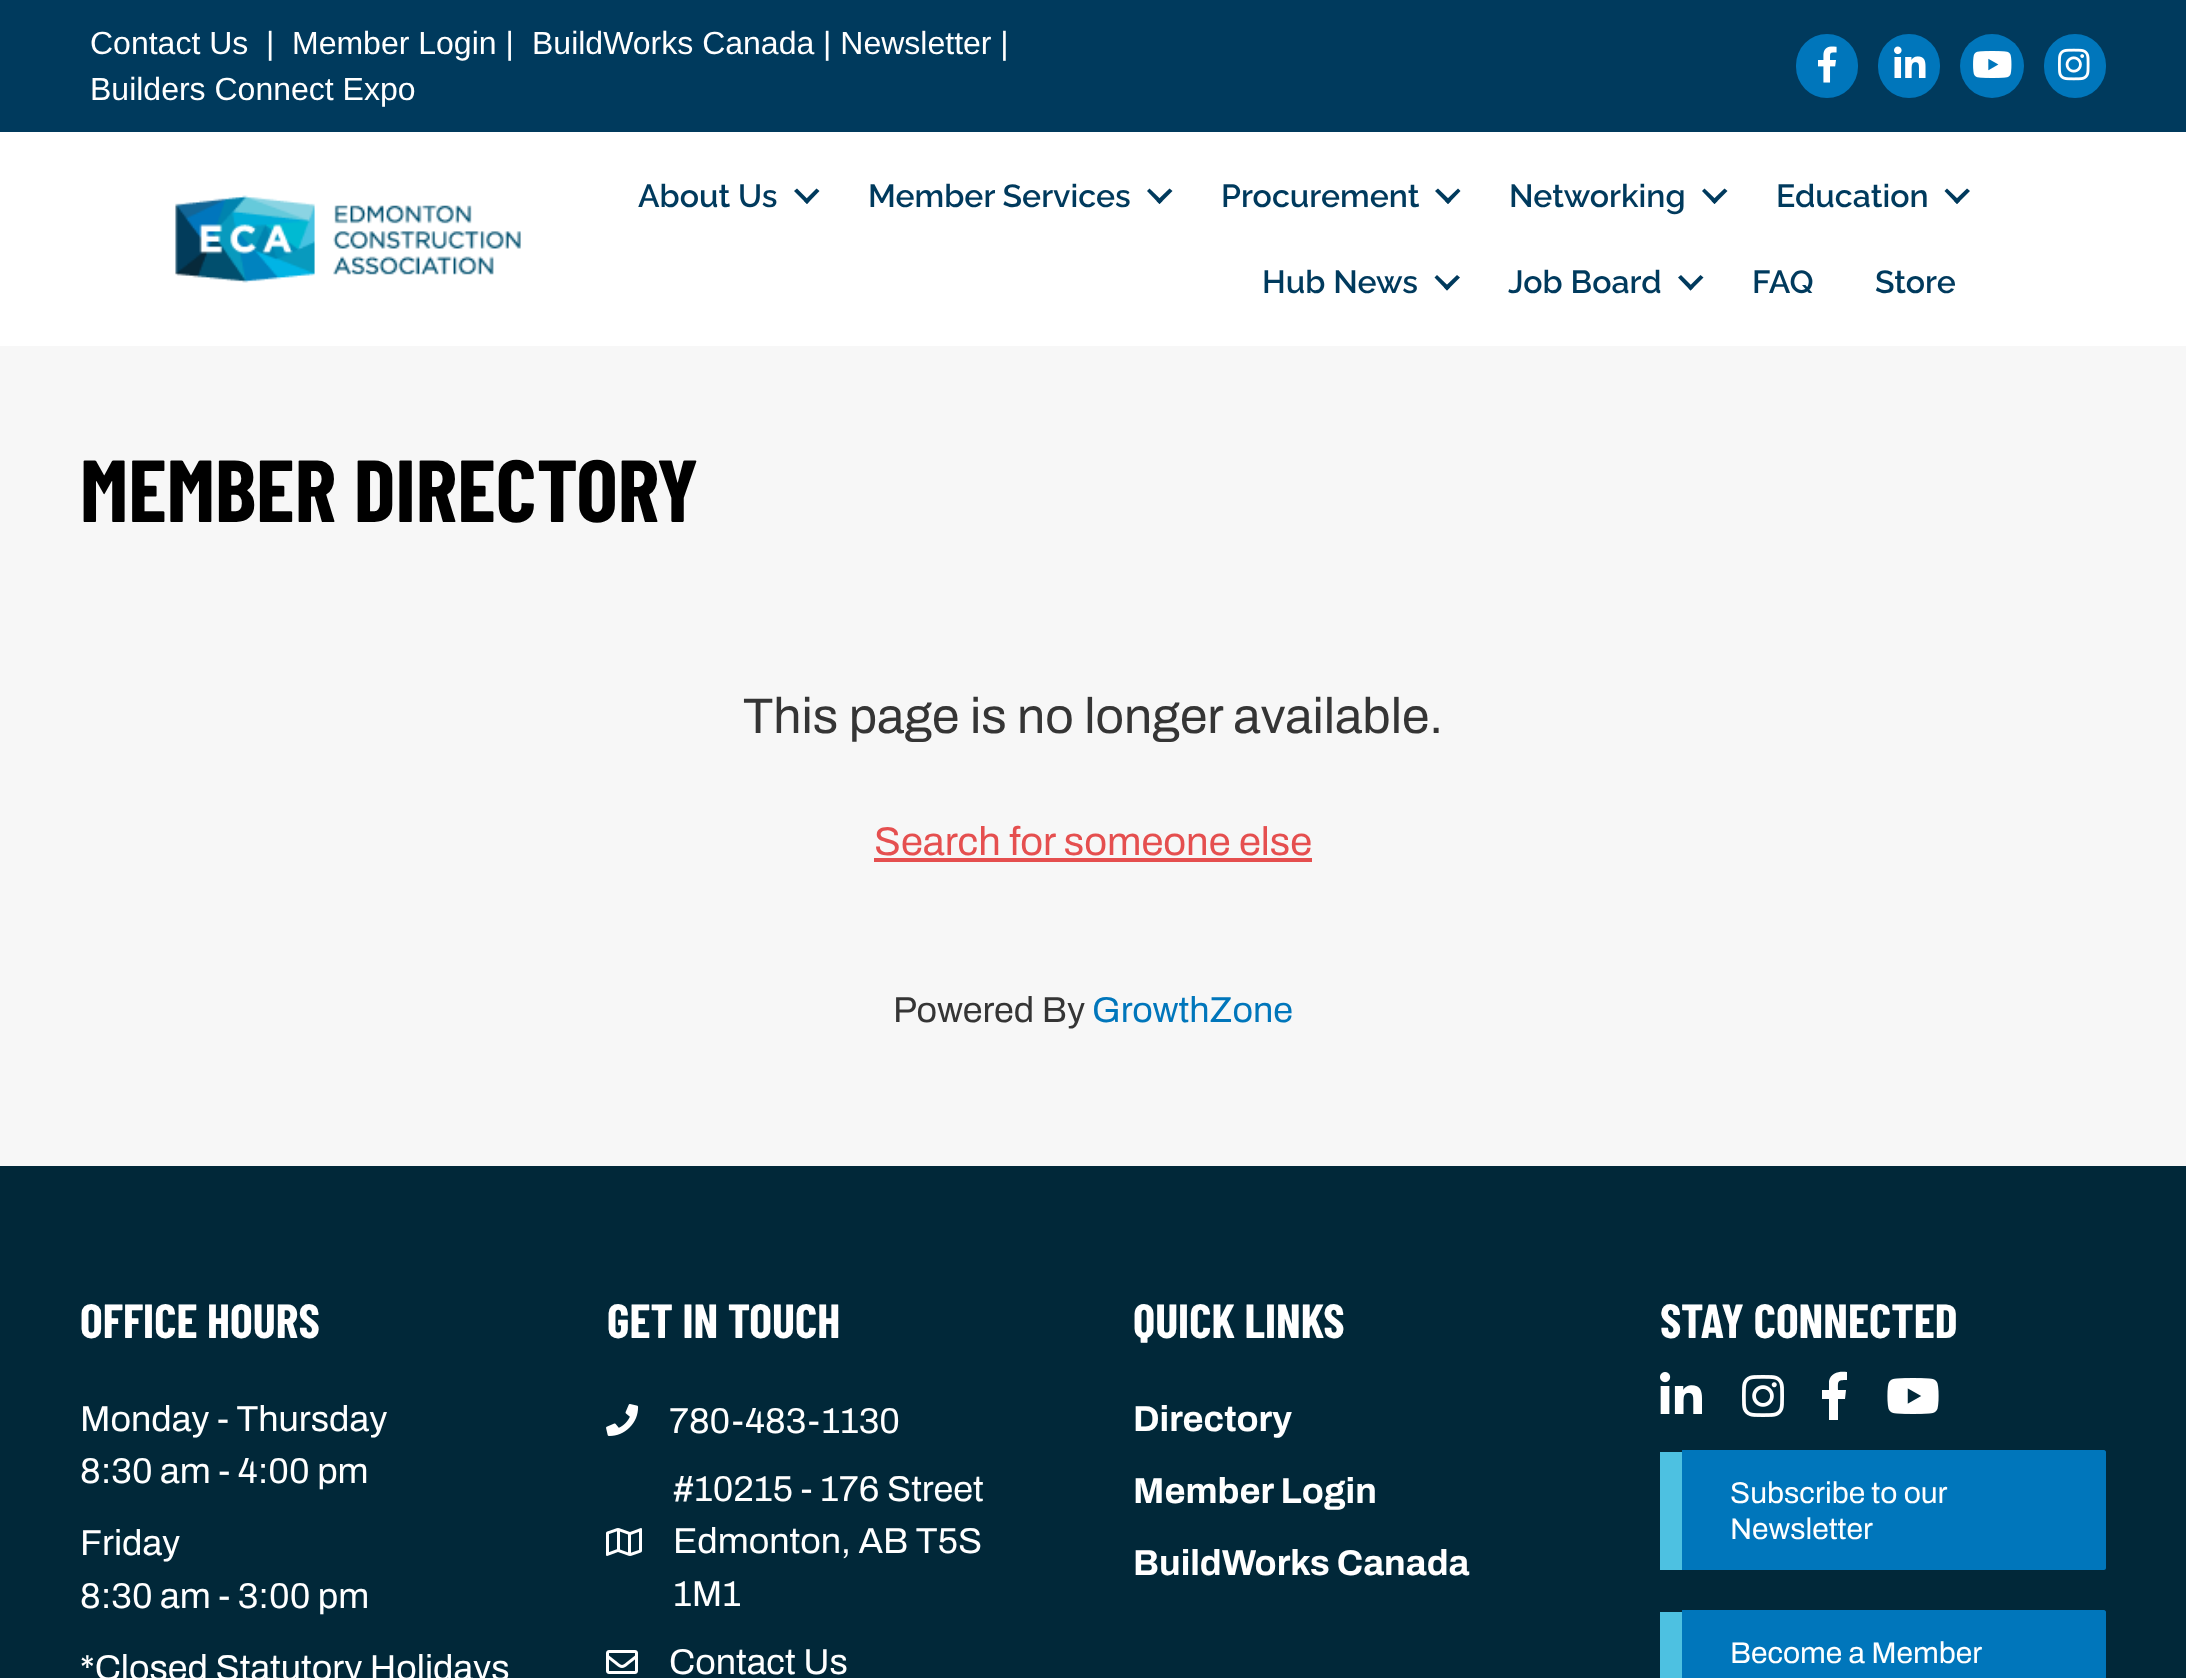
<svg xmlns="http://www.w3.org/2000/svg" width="2186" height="1678">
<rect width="100%" height="100%" fill="#fff"/>
<rect width="2186" height="132" fill="#003a5d"/>
<text x="90" y="54" style="font-family:Liberation Sans;font-size:32px;fill:#fff">Contact Us</text>
<text x="266" y="54" style="font-family:Liberation Sans;font-size:32px;fill:#fff">|</text>
<text x="292" y="54" style="font-family:Liberation Sans;font-size:32px;fill:#fff">Member Login |</text>
<text x="532" y="54" style="font-family:Liberation Sans;font-size:32px;fill:#fff">BuildWorks Canada | Newsletter |</text>
<text x="90" y="100" style="font-family:Liberation Sans;font-size:32px;fill:#fff">Builders Connect Expo</text>
<rect x="1796" y="34" width="62" height="64" rx="31" fill="#0076bb"/>
<image x="1818" y="46" width="19" height="37" href="media/1.png"/>
<rect x="1878" y="34" width="62" height="64" rx="31" fill="#0076bb"/>
<image x="1894" y="46" width="32" height="32" href="media/2.png"/>
<circle cx="1992" cy="66" r="32" fill="#0076bb"/>
<image x="1973" y="51" width="39" height="27" href="media/3.png"/>
<rect x="2044" y="34" width="62" height="64" rx="31" fill="#0076bb"/>
<image x="2058" y="48" width="32" height="33" href="media/4.png"/>
<image x="175" y="195" width="346" height="88" href="media/5.png"/>
<text x="638" y="207" style="font-family:Raleway;font-size:32px;font-weight:600;fill:#003a5d">About Us</text>
<path d="M816.5 188.5l3 2.5l-12.5 13l-3-3z" fill="#003a5d"/>
<path d="M797 188.5l12.5 12.5l-2.5 3l-13-13z" fill="#003a5d"/>
<text x="868" y="207" style="font-family:Raleway;font-size:32px;font-weight:600;fill:#003a5d">Member Services</text>
<path d="M1169.5 188.5l3 2.5l-13 13l-3-3z" fill="#003a5d"/>
<path d="M1149.5 188.5l13 12.5l-3 3l-12.5-13z" fill="#003a5d"/>
<text x="1221" y="207" style="font-family:Raleway;font-size:32px;font-weight:600;fill:#003a5d">Procurement</text>
<path d="M1458 188.5l2.5 2.5l-12.5 13l-3-3z" fill="#003a5d"/>
<path d="M1438 188.5l13 12.5l-3 3l-13-13z" fill="#003a5d"/>
<text x="1509" y="207" style="font-family:Raleway;font-size:32px;font-weight:600;fill:#003a5d">Networking</text>
<path d="M1724.5 188.5l3 2.5l-13 13l-3-3z" fill="#003a5d"/>
<path d="M1704.5 188.5l13 12.5l-3 3l-12.5-13z" fill="#003a5d"/>
<text x="1776" y="207" style="font-family:Raleway;font-size:32px;font-weight:600;fill:#003a5d">Education</text>
<path d="M1967 188.5l3 2.5l-13 13l-3-3z" fill="#003a5d"/>
<path d="M1947 188.5l13 12.5l-3 3l-12.5-13z" fill="#003a5d"/>
<text x="1262" y="293" style="font-family:Raleway;font-size:32px;font-weight:600;fill:#003a5d">Hub News</text>
<path d="M1457 275l3 2.5l-13 13l-3-3z" fill="#003a5d"/>
<path d="M1437 275l13 12.5l-3 3l-12.5-13z" fill="#003a5d"/>
<text x="1508" y="293" style="font-family:Raleway;font-size:32px;font-weight:600;fill:#003a5d">Job Board</text>
<path d="M1700.5 275l3 2.5l-13 13l-2.5-3z" fill="#003a5d"/>
<path d="M1681 275l12.5 12.5l-3 3l-12.5-13z" fill="#003a5d"/>
<text x="1752" y="293" style="font-family:Raleway;font-size:32px;font-weight:600;fill:#003a5d">FAQ</text>
<text x="1875" y="293" style="font-family:Raleway;font-size:32px;font-weight:600;fill:#003a5d">Store</text>
<rect y="346" width="2186" height="820" fill="#f7f7f7"/>
<text x="80" y="522" style="font-family:Barlow Condensed;font-size:88px;font-weight:bold;fill:#000">MEMBER DIRECTORY</text>
<text x="743" y="733" style="font-family:Archivo;font-size:50px;fill:#353535">This page is no longer available.</text>
<text x="874" y="855" style="font-family:Archivo;font-size:40px;fill:#e54f4f">Search for someone else</text>
<rect x="874" y="858" width="438" height="4" fill="#e54f4f"/>
<text x="893" y="1022" style="font-family:Archivo;font-size:36px;fill:#353535">Powered By</text>
<text x="1092" y="1022" style="font-family:Archivo;font-size:36px;fill:#0076bb">GrowthZone</text>
<rect y="1166" width="2186" height="512" fill="#012839"/>
<text x="80" y="1338" style="font-family:Barlow Condensed;font-size:48px;font-weight:bold;fill:#fff">OFFICE HOURS</text>
<text x="80" y="1431" style="font-family:Archivo;font-size:36px;fill:#fff">Monday - Thursday</text>
<text x="80" y="1483" style="font-family:Archivo;font-size:36px;fill:#fff">8:30 am - 4:00 pm</text>
<text x="80" y="1555" style="font-family:Archivo;font-size:36px;fill:#fff">Friday</text>
<text x="80" y="1608" style="font-family:Archivo;font-size:36px;fill:#fff">8:30 am - 3:00 pm</text>
<text x="80" y="1680" style="font-family:Archivo;font-size:36px;fill:#fff">*Closed Statutory Holidays</text>
<text x="607" y="1338" style="font-family:Barlow Condensed;font-size:48px;font-weight:bold;fill:#fff">GET IN TOUCH</text>
<image x="606" y="1404" width="33" height="32" href="media/6.png"/>
<text x="669" y="1433" style="font-family:Archivo;font-size:36px;fill:#fff">780-483-1130</text>
<image x="606" y="1528" width="36" height="28" href="media/7.png"/>
<text x="673" y="1501" style="font-family:Archivo;font-size:36px;fill:#fff">#10215 - 176 Street</text>
<text x="673" y="1553" style="font-family:Archivo;font-size:36px;fill:#fff">Edmonton, AB T5S</text>
<text x="673" y="1606" style="font-family:Archivo;font-size:36px;fill:#fff">1M1</text>
<image x="606" y="1650" width="32" height="24" href="media/8.png"/>
<text x="669" y="1674" style="font-family:Archivo;font-size:36px;fill:#fff">Contact Us</text>
<text x="1133" y="1338" style="font-family:Barlow Condensed;font-size:48px;font-weight:bold;fill:#fff">QUICK LINKS</text>
<text x="1133" y="1431" style="font-family:Archivo;font-size:36px;font-weight:bold;fill:#fff">Directory</text>
<text x="1133" y="1503" style="font-family:Archivo;font-size:36px;font-weight:bold;fill:#fff">Member Login</text>
<text x="1133" y="1575" style="font-family:Archivo;font-size:36px;font-weight:bold;fill:#fff">BuildWorks Canada</text>
<text x="1660" y="1338" style="font-family:Barlow Condensed;font-size:48px;font-weight:bold;fill:#fff">STAY CONNECTED</text>
<image x="1660" y="1372" width="42" height="42" href="media/9.png"/>
<image x="1742" y="1375" width="42" height="42" href="media/10.png"/>
<path d="M1829 1420v-21h-7v-9h7v-9c2-9 11-10 18-9v8c-10 0-9 1-9 10h8l-1 9h-7v21z" fill="#fff"/>
<image x="1887" y="1378" width="52" height="36" href="media/11.png"/>
<path d="M1682 1450h422c1 0 2 1 2 2v116c0 1-1 2-2 2h-422z" fill="#0076bb"/>
<rect x="1660" y="1452" width="22" height="118" fill="#4dc1e1"/>
<text x="1730" y="1503" style="font-family:Archivo;font-size:30px;fill:#fff">Subscribe to our</text>
<text x="1730" y="1539" style="font-family:Archivo;font-size:30px;fill:#fff">Newsletter</text>
<path d="M1682 1610h422c1 0 2 1 2 2v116c0 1-1 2-2 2h-422z" fill="#0076bb"/>
<rect x="1660" y="1612" width="22" height="66" fill="#4dc1e1"/>
<text x="1730" y="1663" style="font-family:Archivo;font-size:30px;fill:#fff">Become a Member</text>
</svg>
